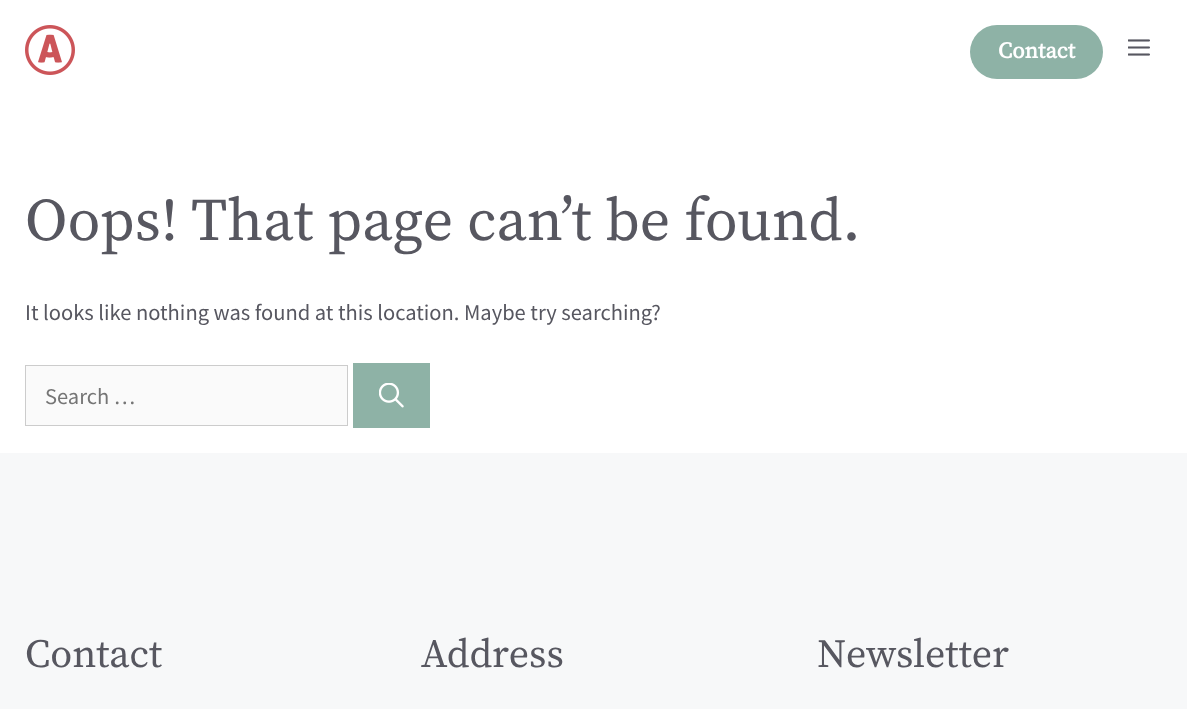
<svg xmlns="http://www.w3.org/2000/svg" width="1187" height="709">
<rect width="100%" height="100%" fill="#fff"/>
<image x="25" y="25" width="50" height="50" href="media/1.png"/>
<rect x="970" y="25" width="133" height="54" rx="27" fill="#8eb2a6"/>
<text x="998" y="58" style="font-family:Source Serif Pro;font-size:22.5px;font-weight:bold;fill:#fff">Contact</text>
<image x="1128" y="39" width="22" height="17" href="media/2.png"/>
<text x="25" y="240" style="font-family:Source Serif Pro;font-size:60px;fill:#575760">Oops! That page can’t be found.</text>
<text x="25" y="320" style="font-family:Source Sans Pro;font-size:22.5px;fill:#575760">It looks like nothing was found at this location. Maybe try searching?</text>
<rect x="25.5" y="365.5" width="322" height="60" fill="#fafafa" stroke="#ccc"/>
<text x="45" y="404" style="font-family:Source Sans Pro;font-size:22.5px;fill:#757575">Search …</text>
<rect x="353" y="363" width="77" height="65" fill="#8eb2a6"/>
<image x="379" y="383" width="25" height="25" href="media/3.png"/>
<rect y="453" width="1187" height="256" fill="#f7f8f9"/>
<text x="25" y="667" style="font-family:Source Serif Pro;font-size:40px;fill:#575760">Contact</text>
<text x="421" y="667" style="font-family:Source Serif Pro;font-size:40px;fill:#575760">Address</text>
<text x="817" y="667" style="font-family:Source Serif Pro;font-size:40px;fill:#575760">Newsletter</text>
</svg>
